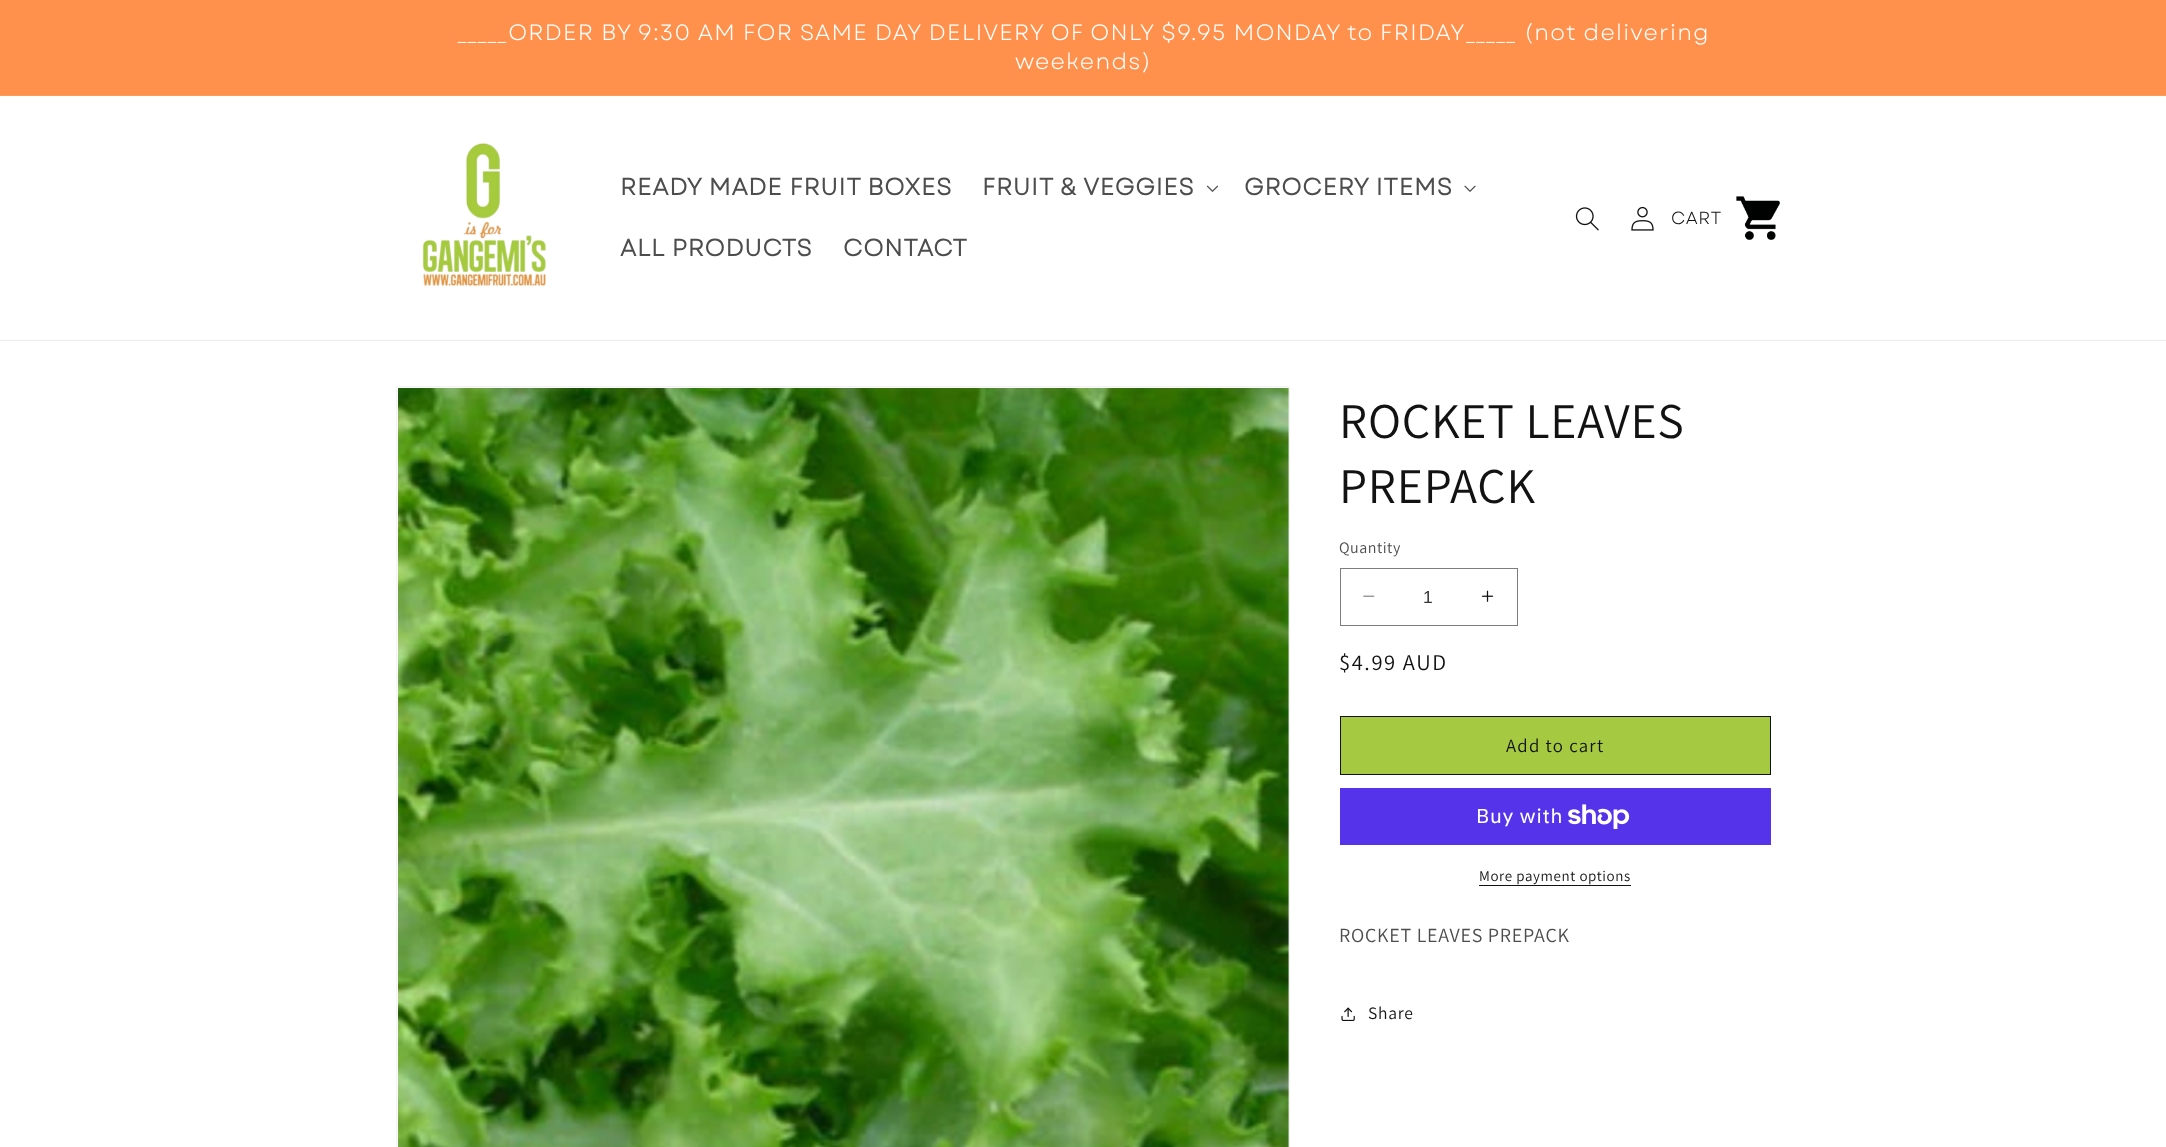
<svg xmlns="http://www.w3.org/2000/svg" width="2166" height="1147">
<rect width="100%" height="100%" fill="#fff"/>
<rect width="2166" height="95" fill="#ff914d"/>
<rect y="95" width="2166" height="1" fill="#ff9a5b"/>
<text x="457" y="40" word-spacing="-0.1" style="font-family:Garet;font-size:22.25px;letter-spacing:1.25px;fill:#fff">_____ORDER BY 9:30 AM FOR SAME DAY DELIVERY OF ONLY $9.95 MONDAY</text>
<text x="1347" y="40" style="font-family:Garet;font-size:22.25px;letter-spacing:1.25px;fill:#fff">to FRIDAY_____ (not delivering</text>
<text x="1015" y="69" style="font-family:Garet;font-size:22.25px;letter-spacing:1.25px;fill:#fff">weekends)</text>
<rect y="340" width="2166" height="1" fill="#ececec"/>
<image x="422" y="143" width="124" height="143" href="media/1.png"/>
<text x="620" y="195" style="font-family:Garet;font-size:23.75px;font-weight:bold;letter-spacing:0.75px;fill:#4d4d4d">READY MADE FRUIT BOXES</text>
<text x="982" y="195" style="font-family:Garet;font-size:23.75px;font-weight:bold;letter-spacing:0.75px;fill:#4d4d4d">FRUIT &amp; VEGGIES</text>
<image x="1206" y="185" width="13" height="7" href="media/2.png"/>
<text x="1244" y="195" style="font-family:Garet;font-size:23.75px;font-weight:bold;letter-spacing:0.75px;fill:#4d4d4d">GROCERY ITEMS</text>
<image x="1464" y="185" width="12" height="7" href="media/3.png"/>
<text x="620" y="256" style="font-family:Garet;font-size:23.75px;font-weight:bold;letter-spacing:0.75px;fill:#4d4d4d">ALL PRODUCTS</text>
<text x="843" y="256" style="font-family:Garet;font-size:23.75px;font-weight:bold;letter-spacing:0.75px;fill:#4d4d4d">CONTACT</text>
<image x="1575" y="207" width="24" height="24" href="media/4.png"/>
<image x="1631" y="206" width="23" height="25" href="media/5.png"/>
<text x="1671" y="224" style="font-family:Garet;font-size:17.5px;letter-spacing:0.75px;fill:#121212">CART</text>
<image x="1736" y="196" width="44" height="44" href="media/6.png"/>
<rect x="396.5" y="386.5" width="893" height="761" fill="none" stroke="#f3f3f3"/>
<image x="398" y="388" width="891" height="759" href="media/7.png"/>
<text x="1339" y="438" style="font-family:Assistant;font-size:50px;letter-spacing:0.75px;fill:#121212">ROCKET LEAVES</text>
<text x="1339" y="503" style="font-family:Assistant;font-size:50px;letter-spacing:0.75px;fill:#121212">PREPACK</text>
<text x="1339" y="553" style="font-family:Assistant;font-size:16px;letter-spacing:0.5px;fill:#4d4d4d">Quantity</text>
<image x="1363" y="595" width="12" height="2" href="media/8.png"/>
<image x="1481" y="590" width="13" height="12" href="media/9.png"/>
<rect x="1340.5" y="568.5" width="177" height="57" fill="none" stroke="#7d7d7d"/>
<text x="1423" y="603" style="font-family:Liberation Sans;font-size:17.5px;fill:#363636">1</text>
<text x="1339" y="670" style="font-family:Assistant;font-size:22.5px;letter-spacing:1.6px;fill:#121212">$4.99 AUD</text>
<rect x="1341" y="717" width="429" height="57" fill="#a5ca41"/>
<rect x="1340.5" y="716.5" width="430" height="58" fill="none" stroke="#121212"/>
<text x="1506" y="752" style="font-family:Assistant;font-size:18.75px;letter-spacing:1.25px;fill:#121212">Add to cart</text>
<rect x="1340" y="788" width="431" height="57" fill="#5433eb"/>
<text x="1476" y="823" style="font-family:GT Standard;font-size:20px;letter-spacing:0.75px;fill:#fff">Buy with</text>
<image x="1568" y="804" width="62" height="25" href="media/10.png"/>
<text x="1479" y="881" style="font-family:Assistant;font-size:15px;letter-spacing:0.6px;fill:#121212">More payment options</text>
<rect x="1479" y="885" width="152" height="1" fill="#121212"/>
<text x="1339" y="942" style="font-family:Assistant;font-size:20px;letter-spacing:0.75px;fill:#4d4d4d">ROCKET LEAVES PREPACK</text>
<image x="1341" y="1007" width="14" height="14" href="media/11.png"/>
<text x="1368" y="1019" style="font-family:Assistant;font-size:17.5px;letter-spacing:0.75px;fill:#121212">Share</text>
</svg>
